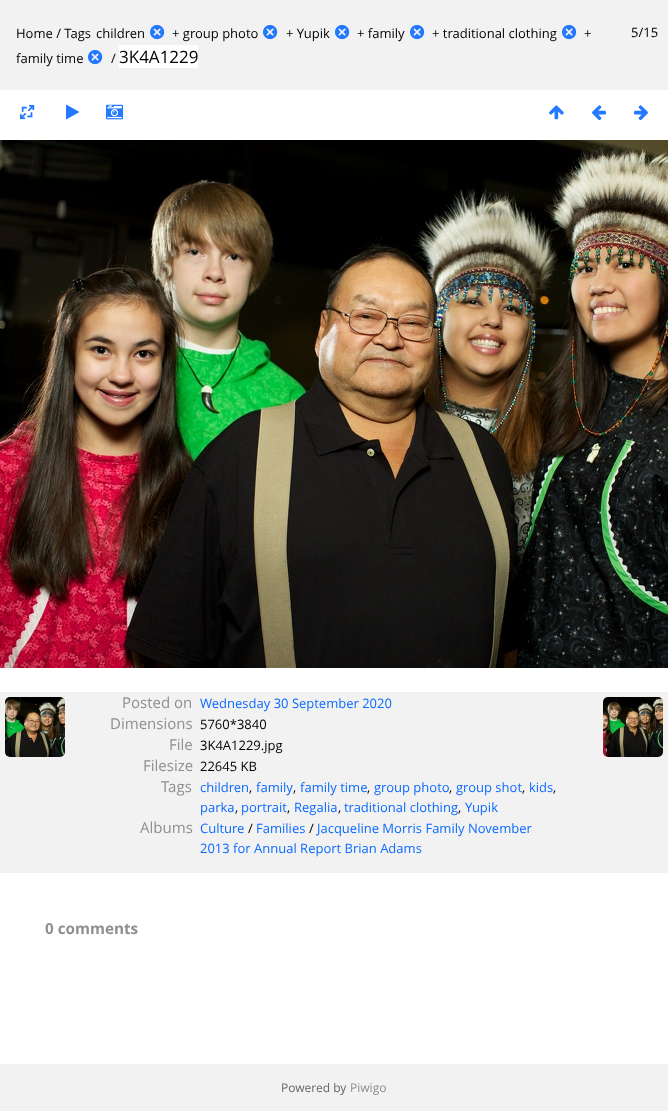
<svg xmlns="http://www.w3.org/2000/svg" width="668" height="1111">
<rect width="100%" height="100%" fill="#fff"/>
<rect width="668" height="90" fill="#f2f2f2"/>
<text x="16" y="38" style="font-family:Open Sans;font-size:13px;fill:#000">Home / Tags</text>
<text x="96" y="38" style="font-family:Open Sans;font-size:13px;fill:#000">children</text>
<image x="150" y="25" width="15" height="15" href="media/1.png"/>
<text x="172" y="38" style="font-family:Open Sans;font-size:13px;fill:#000">+ group photo</text>
<image x="263" y="25" width="15" height="15" href="media/1.png"/>
<text x="286" y="38" style="font-family:Open Sans;font-size:13px;fill:#000">+ Yupik</text>
<image x="335" y="25" width="15" height="15" href="media/1.png"/>
<text x="357" y="38" style="font-family:Open Sans;font-size:13px;fill:#000">+ family</text>
<image x="410" y="25" width="15" height="15" href="media/1.png"/>
<text x="432" y="38" style="font-family:Open Sans;font-size:13px;fill:#000">+ traditional clothing</text>
<image x="562" y="25" width="15" height="15" href="media/1.png"/>
<text x="584" y="38" style="font-family:Open Sans;font-size:13px;fill:#000">+</text>
<text x="16" y="63" style="font-family:Open Sans;font-size:13px;fill:#000">family time</text>
<image x="88" y="50" width="15" height="15" href="media/1.png"/>
<text x="111" y="63" style="font-family:Open Sans;font-size:13px;fill:#000">/</text>
<rect x="119" y="45" width="79" height="23" fill="#fff"/>
<text x="119" y="63" style="font-family:Open Sans;font-size:17px;fill:#000">3K4A1229</text>
<text x="631" y="37" style="font-family:Open Sans;font-size:13px;fill:#000">5/15</text>
<image x="20" y="104" width="15" height="16" href="media/2.png"/>
<text x="66" y="118" style="font-family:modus;font-size:17px;fill:#2379ff">▶</text>
<image x="106" y="104" width="17" height="16" href="media/3.png"/>
<text x="549" y="118" style="font-family:modus;font-size:17px;fill:#2379ff">↑</text>
<text x="592" y="118" style="font-family:modus;font-size:17px;fill:#2379ff">←</text>
<text x="634" y="118" style="font-family:modus;font-size:17px;fill:#2379ff">→</text>
<image x="0" y="140" width="668" height="528" href="media/4.png"/>
<rect y="692" width="668" height="181" fill="#f2f2f2"/>
<text x="122" y="708" style="font-family:Open Sans;font-size:15px;fill:#8e8e93">Posted on</text>
<text x="200" y="708" style="font-family:Open Sans;font-size:13px;fill:#0b6aff">Wednesday 30 September 2020</text>
<text x="110" y="729" style="font-family:Open Sans;font-size:15px;fill:#8e8e93">Dimensions</text>
<text x="200" y="729" style="font-family:Open Sans;font-size:13px;fill:#000">5760*3840</text>
<text x="169" y="750" style="font-family:Open Sans;font-size:15px;fill:#8e8e93">File</text>
<text x="200" y="750" style="font-family:Open Sans;font-size:13px;fill:#000">3K4A1229.jpg</text>
<text x="143" y="771" style="font-family:Open Sans;font-size:15px;fill:#8e8e93">Filesize</text>
<text x="200" y="771" style="font-family:Open Sans;font-size:13px;fill:#000">22645 KB</text>
<text x="161" y="792" style="font-family:Open Sans;font-size:15px;fill:#8e8e93">Tags</text>
<text x="200" y="792" style="font-family:Open Sans;font-size:13px;fill:#0b6aff">children</text>
<text x="249" y="792" style="font-family:Open Sans;font-size:13px;fill:#000">,</text>
<text x="256" y="792" style="font-family:Open Sans;font-size:13px;fill:#0b6aff">family</text>
<text x="293" y="792" style="font-family:Open Sans;font-size:13px;fill:#000">,</text>
<text x="300" y="792" style="font-family:Open Sans;font-size:13px;fill:#0b6aff">family time</text>
<text x="367" y="792" style="font-family:Open Sans;font-size:13px;fill:#000">,</text>
<text x="374" y="792" style="font-family:Open Sans;font-size:13px;fill:#0b6aff">group photo</text>
<text x="449" y="792" style="font-family:Open Sans;font-size:13px;fill:#000">,</text>
<text x="456" y="792" style="font-family:Open Sans;font-size:13px;fill:#0b6aff">group shot</text>
<text x="522" y="792" style="font-family:Open Sans;font-size:13px;fill:#000">,</text>
<text x="529" y="792" style="font-family:Open Sans;font-size:13px;fill:#0b6aff">kids</text>
<text x="553" y="792" style="font-family:Open Sans;font-size:13px;fill:#000">,</text>
<text x="200" y="812" style="font-family:Open Sans;font-size:13px;fill:#0b6aff">parka</text>
<text x="235" y="812" style="font-family:Open Sans;font-size:13px;fill:#000">,</text>
<text x="241" y="812" style="font-family:Open Sans;font-size:13px;fill:#0b6aff">portrait</text>
<text x="287" y="812" style="font-family:Open Sans;font-size:13px;fill:#000">,</text>
<text x="294" y="812" style="font-family:Open Sans;font-size:13px;fill:#0b6aff">Regalia</text>
<text x="338" y="812" style="font-family:Open Sans;font-size:13px;fill:#000">,</text>
<text x="344" y="812" style="font-family:Open Sans;font-size:13px;fill:#0b6aff">traditional clothing</text>
<text x="458" y="812" style="font-family:Open Sans;font-size:13px;fill:#000">,</text>
<text x="465" y="812" style="font-family:Open Sans;font-size:13px;fill:#0b6aff">Yupik</text>
<text x="140" y="833" style="font-family:Open Sans;font-size:15px;fill:#8e8e93">Albums</text>
<text x="200" y="833" style="font-family:Open Sans;font-size:13px;fill:#0b6aff">Culture</text>
<text x="248" y="833" style="font-family:Open Sans;font-size:13px;fill:#000">/</text>
<text x="256" y="833" style="font-family:Open Sans;font-size:13px;fill:#0b6aff">Families</text>
<text x="309" y="833" style="font-family:Open Sans;font-size:13px;fill:#000">/</text>
<text x="317" y="833" style="font-family:Open Sans;font-size:13px;fill:#0b6aff">Jacqueline Morris Family November</text>
<text x="200" y="853" style="font-family:Open Sans;font-size:13px;fill:#0b6aff">2013 for Annual Report Brian Adams</text>
<image x="5" y="697" width="60" height="60" href="media/5.png"/>
<image x="603" y="697" width="60" height="60" href="media/6.png"/>
<text x="45" y="934" style="font-family:Open Sans;font-size:15.25px;font-weight:bold;fill:#8e8e93">0 comments</text>
<rect y="1064" width="668" height="47" fill="#f2f2f2"/>
<text x="281" y="1092" style="font-family:Open Sans;font-size:12px;fill:#666">Powered by</text>
<text x="350" y="1092" style="font-family:Open Sans;font-size:12px;fill:#8e8e93">Piwigo</text>
</svg>
